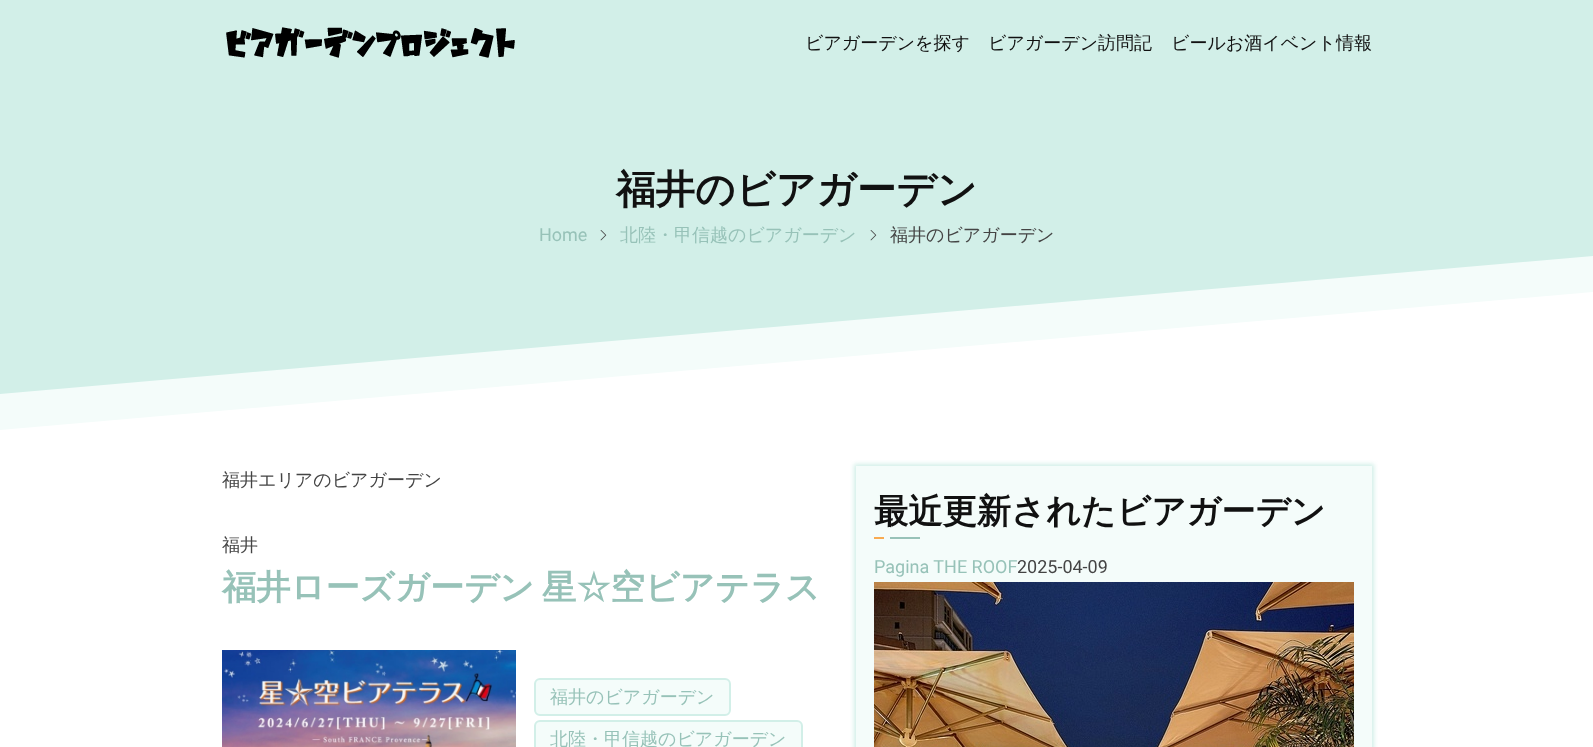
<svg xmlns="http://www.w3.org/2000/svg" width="1593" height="747">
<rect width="100%" height="100%" fill="#fff"/>
<rect width="1593" height="86" fill="#d2efe8"/>
<image x="226" y="27" width="289" height="31" href="media/1.png"/>
<text x="805" y="49" style="font-family:WenQuanYi Zen Hei;font-size:18px;font-weight:500;fill:#111">ビアガーデンを探す</text>
<text x="988" y="49" style="font-family:WenQuanYi Zen Hei;font-size:18px;font-weight:500;fill:#111">ビアガーデン訪問記</text>
<text x="1171" y="49" style="font-family:WenQuanYi Zen Hei;font-size:18px;font-weight:500;fill:#111">ビールお酒イベント情報</text>
<path d="M0 86v344l1593-138v-206z" fill="#f4fcfa"/>
<path d="M0 86v308l1593-138v-170z" fill="#d2efe8"/>
<text x="616" y="203" style="font-family:WenQuanYi Zen Hei;font-size:39.5px;font-weight:bold;fill:#111">福井のビアガーデン</text>
<text x="539" y="241" style="font-family:Roboto;font-size:18px;fill:#97c2b8">Home</text>
<image x="600" y="230" width="7" height="11" href="media/2.png"/>
<text x="620" y="241" style="font-family:WenQuanYi Zen Hei;font-size:18px;font-weight:500;fill:#97c2b8">北陸・甲信越のビアガーデン</text>
<image x="870" y="230" width="7" height="11" href="media/2.png"/>
<text x="890" y="241" style="font-family:WenQuanYi Zen Hei;font-size:18px;font-weight:500;fill:#444">福井のビアガーデン</text>
<text x="222" y="486" style="font-family:WenQuanYi Zen Hei;font-size:18px;font-weight:500;fill:#444">福井エリアのビアガーデン</text>
<text x="222" y="551" style="font-family:WenQuanYi Zen Hei;font-size:18px;font-weight:500;fill:#444">福井</text>
<text x="222" y="599" style="font-family:WenQuanYi Zen Hei;font-size:34.25px;font-weight:bold;fill:#97c2b8">福井ローズガーデン</text>
<text x="542" y="599" style="font-family:WenQuanYi Zen Hei;font-size:34.25px;font-weight:bold;fill:#97c2b8">星☆空ビアテラス</text>
<image x="222" y="650" width="294" height="97" href="media/3.png"/>
<rect x="535" y="679" width="195" height="36" rx="5" fill="#f4fcfa" stroke="#d2efe8" stroke-width="2"/>
<text x="550" y="703" style="font-family:WenQuanYi Zen Hei;font-size:18px;font-weight:500;fill:#97c2b8">福井のビアガーデン</text>
<rect x="535" y="721" width="267" height="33" rx="5" fill="#f4fcfa" stroke="#d2efe8" stroke-width="2"/>
<text x="550" y="745" style="font-family:WenQuanYi Zen Hei;font-size:18px;font-weight:500;fill:#97c2b8">北陸・甲信越のビアガーデン</text>
<rect x="854" y="464" width="520" height="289" fill="#d2efe8" filter="blur(2px)"/>
<rect x="856" y="466" width="516" height="281" fill="#f4fcfa"/>
<text x="874" y="523" style="font-family:WenQuanYi Zen Hei;font-size:34.25px;font-weight:bold;fill:#111">最近更新されたビアガーデン</text>
<rect x="874" y="537" width="10" height="2" fill="#f9ab51"/>
<rect x="890" y="537" width="30" height="2" fill="#97c2b8"/>
<text x="874" y="573" style="font-family:Roboto;font-size:18px;fill:#97c2b8">Pagina THE ROOF</text>
<text x="1017" y="573" style="font-family:Roboto;font-size:18px;fill:#444">2025-04-09</text>
<image x="874" y="582" width="480" height="165" href="media/4.png"/>
</svg>
